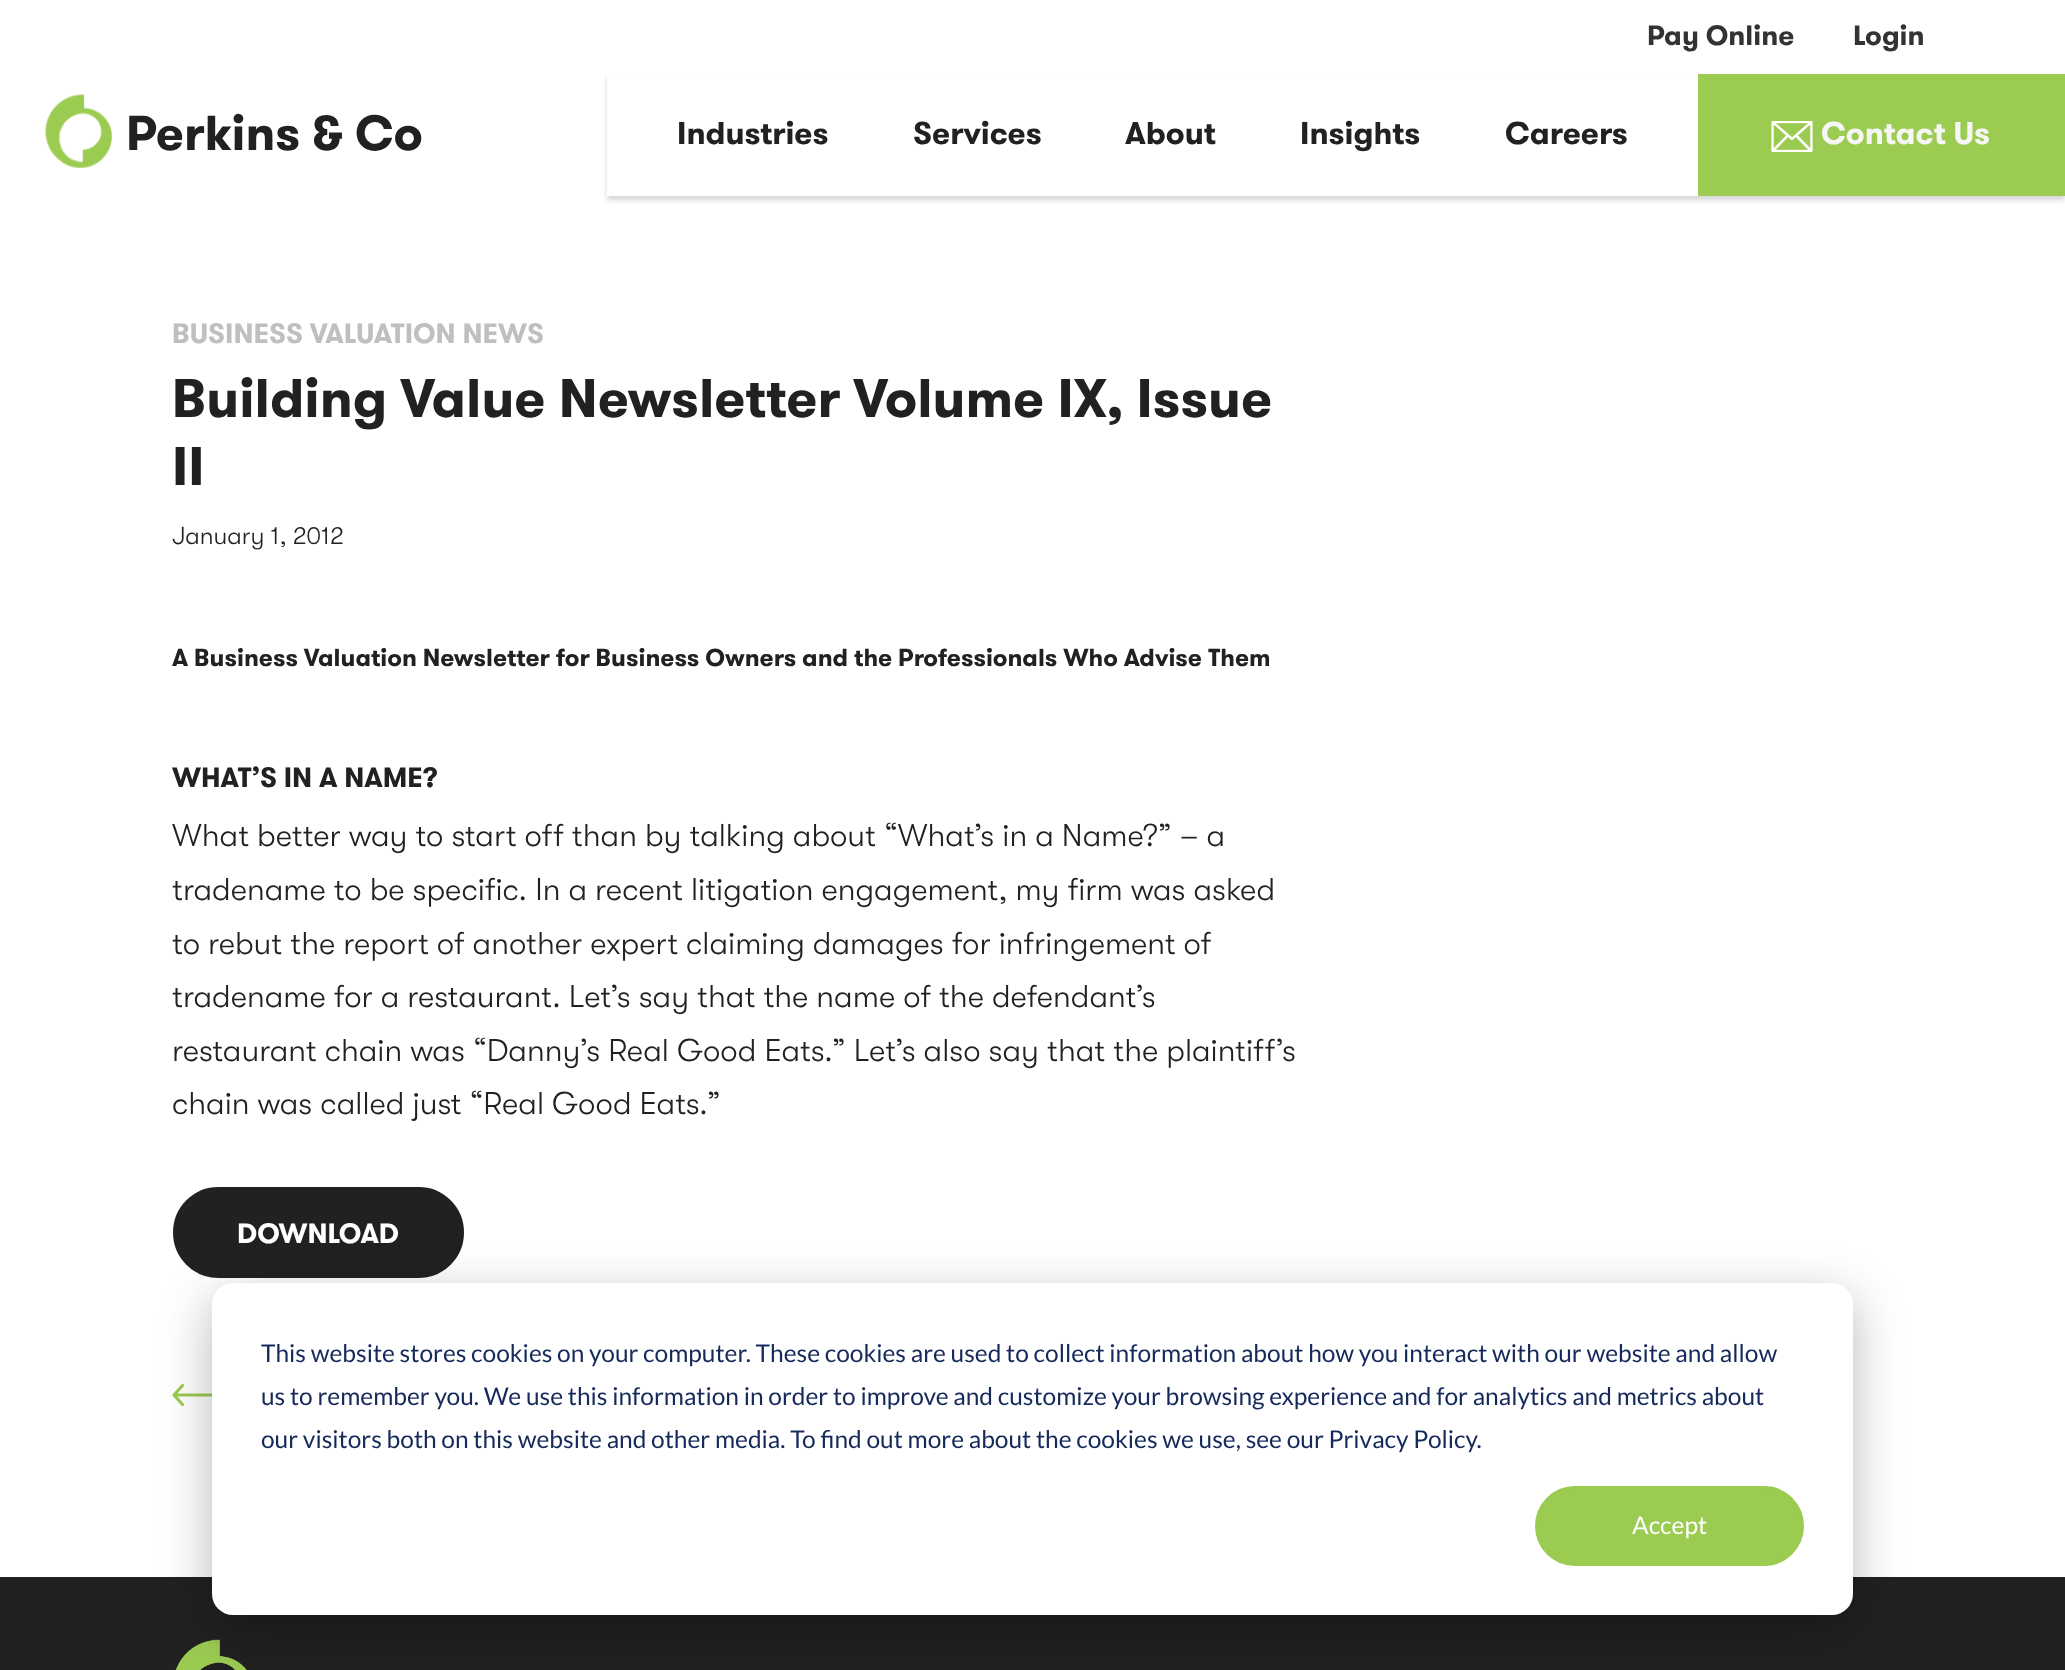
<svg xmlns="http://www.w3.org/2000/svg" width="2065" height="1670">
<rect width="100%" height="100%" fill="#fff"/>
<text x="1647" y="45" style="font-family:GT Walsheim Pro;font-size:28px;font-weight:bold;fill:#333">Pay Online</text>
<text x="1853" y="45" style="font-family:GT Walsheim Pro;font-size:28px;font-weight:bold;fill:#333">Login</text>
<image x="45" y="93" width="67" height="75" href="media/1.png"/>
<text x="126" y="150" style="font-family:GT Walsheim Pro;font-size:49px;font-weight:bold;fill:#212121">Perkins &amp; Co</text>
<rect x="607" y="77" width="1458" height="123" fill="#00000029" filter="blur(2.5px)"/>
<rect x="607" y="74" width="1091" height="122" fill="#fff"/>
<text x="677" y="144" style="font-family:GT Walsheim Pro;font-size:31.5px;font-weight:bold;fill:#212121">Industries</text>
<text x="913" y="144" style="font-family:GT Walsheim Pro;font-size:31.5px;font-weight:bold;fill:#212121">Services</text>
<text x="1125" y="144" style="font-family:GT Walsheim Pro;font-size:31.5px;font-weight:bold;fill:#212121">About</text>
<text x="1300" y="144" style="font-family:GT Walsheim Pro;font-size:31.5px;font-weight:bold;fill:#212121">Insights</text>
<text x="1505" y="144" style="font-family:GT Walsheim Pro;font-size:31.5px;font-weight:bold;fill:#212121">Careers</text>
<rect x="1698" y="74" width="367" height="122" fill="#9ccb52"/>
<image x="1771" y="121" width="42" height="31" href="media/2.png"/>
<text x="1821" y="144" style="font-family:GT Walsheim Pro;font-size:31.5px;font-weight:bold;fill:#f6f6f6">Contact Us</text>
<text x="172" y="343" style="font-family:GT Walsheim Pro;font-size:28px;font-weight:bold;fill:#bfbfbf">BUSINESS VALUATION NEWS</text>
<text x="172" y="417" style="font-family:GT Walsheim Pro;font-size:54.25px;font-weight:bold;fill:#212121">Building Value Newsletter Volume IX, Issue</text>
<text x="172" y="485" style="font-family:GT Walsheim Pro;font-size:54.25px;font-weight:bold;fill:#212121">II</text>
<text x="172" y="544" style="font-family:GT Walsheim Pro;font-size:24.5px;font-weight:300;fill:#212121">January 1, 2012</text>
<text x="172" y="666" style="font-family:GT Walsheim Pro;font-size:24.5px;font-weight:bold;fill:#212121">A Business Valuation Newsletter for Business Owners and the Professionals Who Advise Them</text>
<text x="172" y="787" style="font-family:GT Walsheim Pro;font-size:28px;font-weight:bold;fill:#212121">WHAT’S IN A NAME?</text>
<text x="172" y="846" style="font-family:GT Walsheim Pro;font-size:31.5px;font-weight:300;fill:#212121">What better way to start off than by talking about “What’s in a Name?” – a</text>
<text x="172" y="900" style="font-family:GT Walsheim Pro;font-size:31.5px;font-weight:300;fill:#212121">tradename to be specific. In a recent litigation engagement, my firm was asked</text>
<text x="172" y="954" style="font-family:GT Walsheim Pro;font-size:31.5px;font-weight:300;fill:#212121">to rebut the report of another expert claiming damages for infringement of</text>
<text x="172" y="1007" style="font-family:GT Walsheim Pro;font-size:31.5px;font-weight:300;fill:#212121">tradename for a restaurant. Let’s say that the name of the defendant’s</text>
<text x="172" y="1061" style="font-family:GT Walsheim Pro;font-size:31.5px;font-weight:300;fill:#212121">restaurant chain was “Danny’s Real Good Eats.” Let’s also say that the plaintiff’s</text>
<text x="172" y="1114" style="font-family:GT Walsheim Pro;font-size:31.5px;font-weight:300;fill:#212121">chain was called just “Real Good Eats.”</text>
<rect x="174" y="1188" width="289" height="89" rx="44.5" fill="#212121" stroke="#212121" stroke-width="2"/>
<text x="237" y="1243" style="font-family:GT Walsheim Pro;font-size:28px;font-weight:bold;fill:#fff">DOWNLOAD</text>
<path d="M214.5 1395h-40.5m8.5 9.5l-8.5-9.5m8.5-9.5l-8.5 9.5" fill="none" stroke="#9ccb52" stroke-width="3.1" stroke-linecap="round" stroke-linejoin="round"/>
<rect y="1577" width="2065" height="93" fill="#212121"/>
<image x="175" y="1639" width="72" height="31" href="media/3.png"/>
<rect x="212" y="1297" width="1641" height="332" rx="21" fill="#00000047" filter="blur(24.5px)"/>
<rect x="212" y="1283" width="1641" height="332" rx="21" fill="#fff"/>
<text x="261" y="1362" style="font-family:Lato;font-size:24.5px;fill:#15295a">This website stores cookies on your computer. These cookies are used to collect information about how you interact with our website and allow</text>
<text x="261" y="1405" style="font-family:Lato;font-size:24.5px;fill:#15295a">us to remember you. We use this information in order to improve and customize your browsing experience and for analytics and metrics about</text>
<text x="261" y="1448" style="font-family:Lato;font-size:24.5px;fill:#15295a">our visitors both on this website and other media. To find out more about the cookies we use, see our Privacy Policy.</text>
<rect x="1536" y="1487" width="267" height="78" rx="39" fill="#9bcb51" stroke="#9bcb51" stroke-width="2"/>
<text x="1632" y="1534" style="font-family:Lato;font-size:24.5px;fill:#fff">Accept</text>
</svg>
